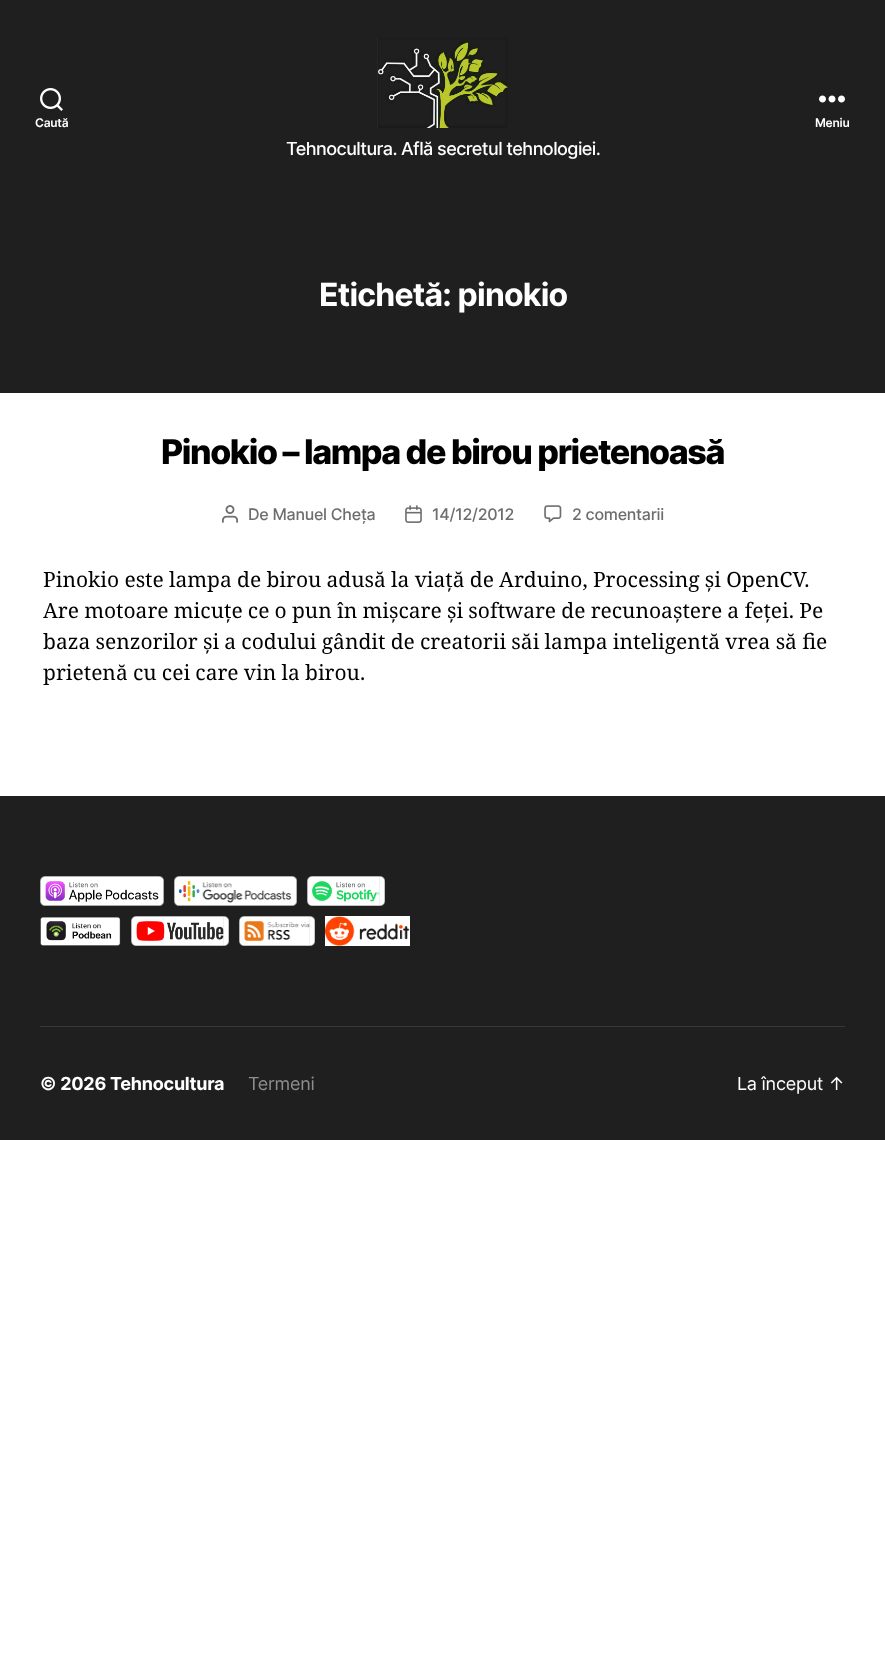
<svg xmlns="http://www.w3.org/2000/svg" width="885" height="1664">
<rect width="100%" height="100%" fill="#fff"/>
<rect width="885" height="393" fill="#1f1f1f"/>
<image x="40" y="88" width="23" height="23" href="media/1.png"/>
<text x="35" y="127" style="font-family:Inter;font-size:12px;font-weight:600;letter-spacing:-0.25px;fill:#fff">Caută</text>
<image x="819" y="95" width="26" height="8" href="media/2.png"/>
<text x="815" y="127" style="font-family:Inter;font-size:12px;font-weight:600;letter-spacing:-0.25px;fill:#fff">Meniu</text>
<image x="377" y="38" width="131" height="90" href="media/3.png"/>
<text x="286" y="155" style="font-family:Inter;font-size:18px;font-weight:500;letter-spacing:-0.55px;fill:#fff">Tehnocultura. Află secretul tehnologiei.</text>
<text x="319" y="306" style="font-family:Inter;font-size:32px;font-weight:bold;letter-spacing:-0.8px;fill:#fff">Etichetă: pinokio</text>
<text x="161" y="464" style="font-family:Inter;font-size:34px;font-weight:800;letter-spacing:-1.4px;fill:#000">Pinokio – lampa de birou prietenoasă</text>
<image x="222" y="505" width="16" height="18" href="media/4.png"/>
<text x="248" y="520" style="font-family:Inter;font-size:16px;font-weight:500;letter-spacing:-0.25px;fill:#6d6d6d">De Manuel Cheța</text>
<image x="405" y="505" width="17" height="18" href="media/5.png"/>
<text x="432" y="520" style="font-family:Inter;font-size:16px;font-weight:500;letter-spacing:-0.25px;fill:#6d6d6d">14/12/2012</text>
<image x="544" y="505" width="18" height="18" href="media/6.png"/>
<text x="572" y="520" style="font-family:Inter;font-size:16px;font-weight:500;letter-spacing:-0.25px;fill:#6d6d6d">2 comentarii</text>
<text x="43" y="587" word-spacing="-0.25" style="font-family:Noto Serif;font-size:21px;fill:#000">Pinokio este lampa de birou adusă la viață de Arduino, Processing și OpenCV.</text>
<text x="43" y="618" word-spacing="-0.25" style="font-family:Noto Serif;font-size:21px;fill:#000">Are motoare micuțe ce o pun în mișcare și software de recunoaștere a feței. Pe</text>
<text x="43" y="649" word-spacing="-0.25" style="font-family:Noto Serif;font-size:21px;fill:#000">baza senzorilor și a codului gândit de creatorii săi lampa inteligentă vrea să fie</text>
<text x="43" y="680" word-spacing="-0.25" style="font-family:Noto Serif;font-size:21px;fill:#000">prietenă cu cei care vin la birou.</text>
<rect y="796" width="885" height="344" fill="#1f1f1f"/>
<rect x="40" y="1026" width="805" height="1" fill="#383838"/>
<image x="40" y="876" width="124" height="30" href="media/7.png"/>
<image x="174" y="876" width="123" height="30" href="media/8.png"/>
<image x="307" y="876" width="78" height="30" href="media/9.png"/>
<image x="40" y="917" width="81" height="29" href="media/10.png"/>
<image x="131" y="916" width="98" height="30" href="media/11.png"/>
<image x="239" y="916" width="76" height="30" href="media/12.png"/>
<rect x="325" y="916" width="85" height="30" fill="#fff"/>
<image x="325" y="916" width="85" height="30" href="media/13.png"/>
<text x="40" y="1090" style="font-family:Inter;font-size:18px;font-weight:bold;letter-spacing:-0.25px;fill:#fff">© 2026 Tehnocultura</text>
<text x="248" y="1090" style="font-family:Inter;font-size:18px;letter-spacing:-0.25px;fill:#8e8e8e">Termeni</text>
<text x="737" y="1090" style="font-family:Inter;font-size:18px;letter-spacing:-0.25px;fill:#fff">La început ↑</text>
</svg>
